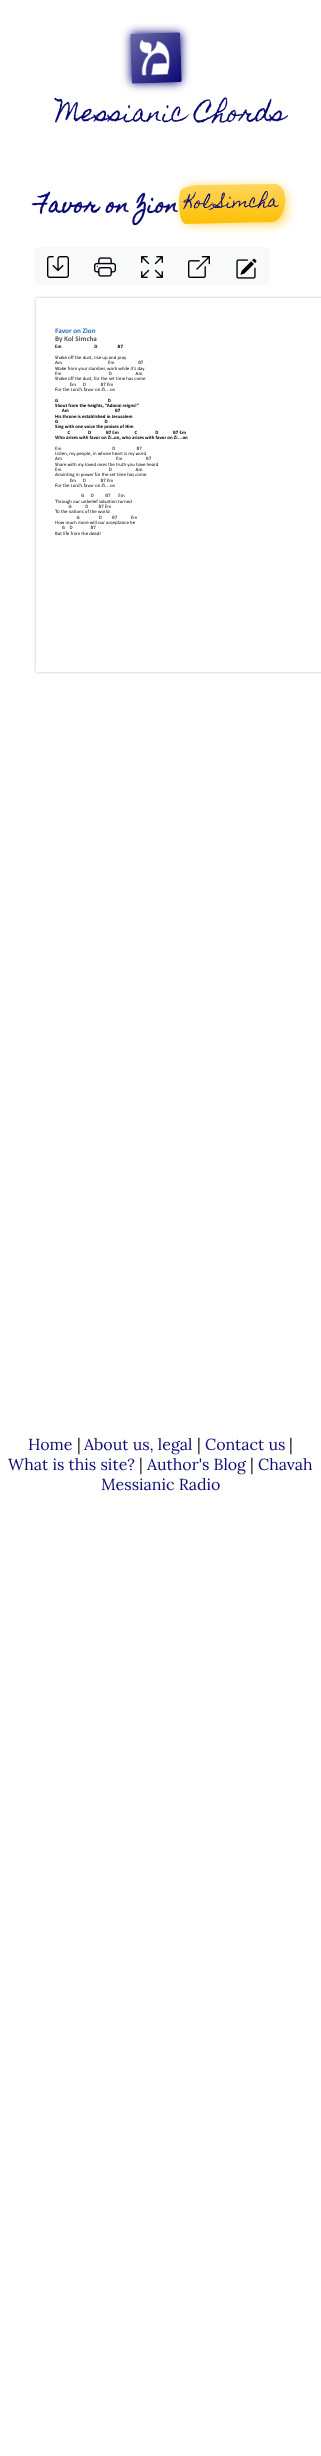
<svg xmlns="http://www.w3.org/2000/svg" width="321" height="2456">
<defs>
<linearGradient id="g1" gradientUnits="userSpaceOnUse" x1="232" y1="184" x2="232" y2="223"><stop offset="0" stop-color="#ffd65e"/><stop offset="1" stop-color="#febf04"/></linearGradient>
<clipPath id="clip1"><path d="M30 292h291v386h-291zm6 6h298v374h-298z" clip-rule="evenodd"/></clipPath>
</defs>
<rect width="100%" height="100%" fill="#fff"/>
<rect x="131" y="33" width="50" height="50" rx="2" fill="#0b0974" filter="blur(5px)"/>
<image x="130" y="32" width="52" height="52" href="media/1.png"/>
<text x="56" y="121" style="font-family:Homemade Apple;font-size:24px;fill:#0b0974">Messianic Chords</text>
<text x="36" y="212" style="font-family:Homemade Apple;font-size:20.75px;font-weight:bold;fill:#0b0974">Favor on Zion</text>
<rect x="181" y="186" width="106" height="39" rx="13" fill="#ffd65ee6" filter="blur(5px)"/>
<path d="M201 185l75-1c15 3 10 38-4 38l-87 2l-1-1c-5-3-5-18-5-24l1-7c2-6 16-7 21-7z" fill="url(#g1)"/>
<text x="185" y="208" transform="rotate(-1 185 208)" style="font-family:Homemade Apple;font-size:16px;fill:#0b0974">Kol Simcha</text>
<path d="M40 247h42v38h-42c-3.5 0-6-2.5-6-6v-26c0-3.5 2.5-6 6-6z" fill="#f8f9fa"/>
<image x="47" y="256" width="22" height="22" href="media/2.png"/>
<rect x="82" y="247" width="140" height="38" fill="#f8f9fa"/>
<image x="94" y="257" width="22" height="20" href="media/3.png"/>
<path d="M222 247h42c3.5 0 6 2.5 6 6v26c0 3.5-2.5 6-6 6h-42z" fill="#f8f9fa"/>
<image x="236" y="258" width="21" height="21" href="media/4.png"/>
<image x="141" y="256" width="22" height="22" href="media/5.png"/>
<image x="188" y="256" width="22" height="22" href="media/6.png"/>
<g clip-path="url(#clip1)">
<rect x="36" y="298" width="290" height="374" fill="#c0c0c0" filter="blur(1.5px)"/>
</g>
<image x="55" y="328" width="133" height="207" href="media/7.png"/>
<text x="28" y="1450" style="font-family:Lora;font-size:16px;fill:#0b0974">Home</text>
<text x="77" y="1450" style="font-family:Lora;font-size:16px;fill:#000">|</text>
<text x="84" y="1450" style="font-family:Lora;font-size:16px;fill:#0b0974">About us, legal</text>
<text x="197" y="1450" style="font-family:Lora;font-size:16px;fill:#000">|</text>
<text x="205" y="1450" style="font-family:Lora;font-size:16px;fill:#0b0974">Contact us</text>
<text x="289" y="1450" style="font-family:Lora;font-size:16px;fill:#000">|</text>
<text x="8" y="1470" style="font-family:Lora;font-size:16px;fill:#0b0974">What is this site?</text>
<text x="139" y="1470" style="font-family:Lora;font-size:16px;fill:#000">|</text>
<text x="147" y="1470" style="font-family:Lora;font-size:16px;fill:#0b0974">Author's Blog</text>
<text x="250" y="1470" style="font-family:Lora;font-size:16px;fill:#000">|</text>
<text x="258" y="1470" style="font-family:Lora;font-size:16px;fill:#0b0974">Chavah</text>
<text x="101" y="1490" style="font-family:Lora;font-size:16px;fill:#0b0974">Messianic Radio</text>
</svg>
